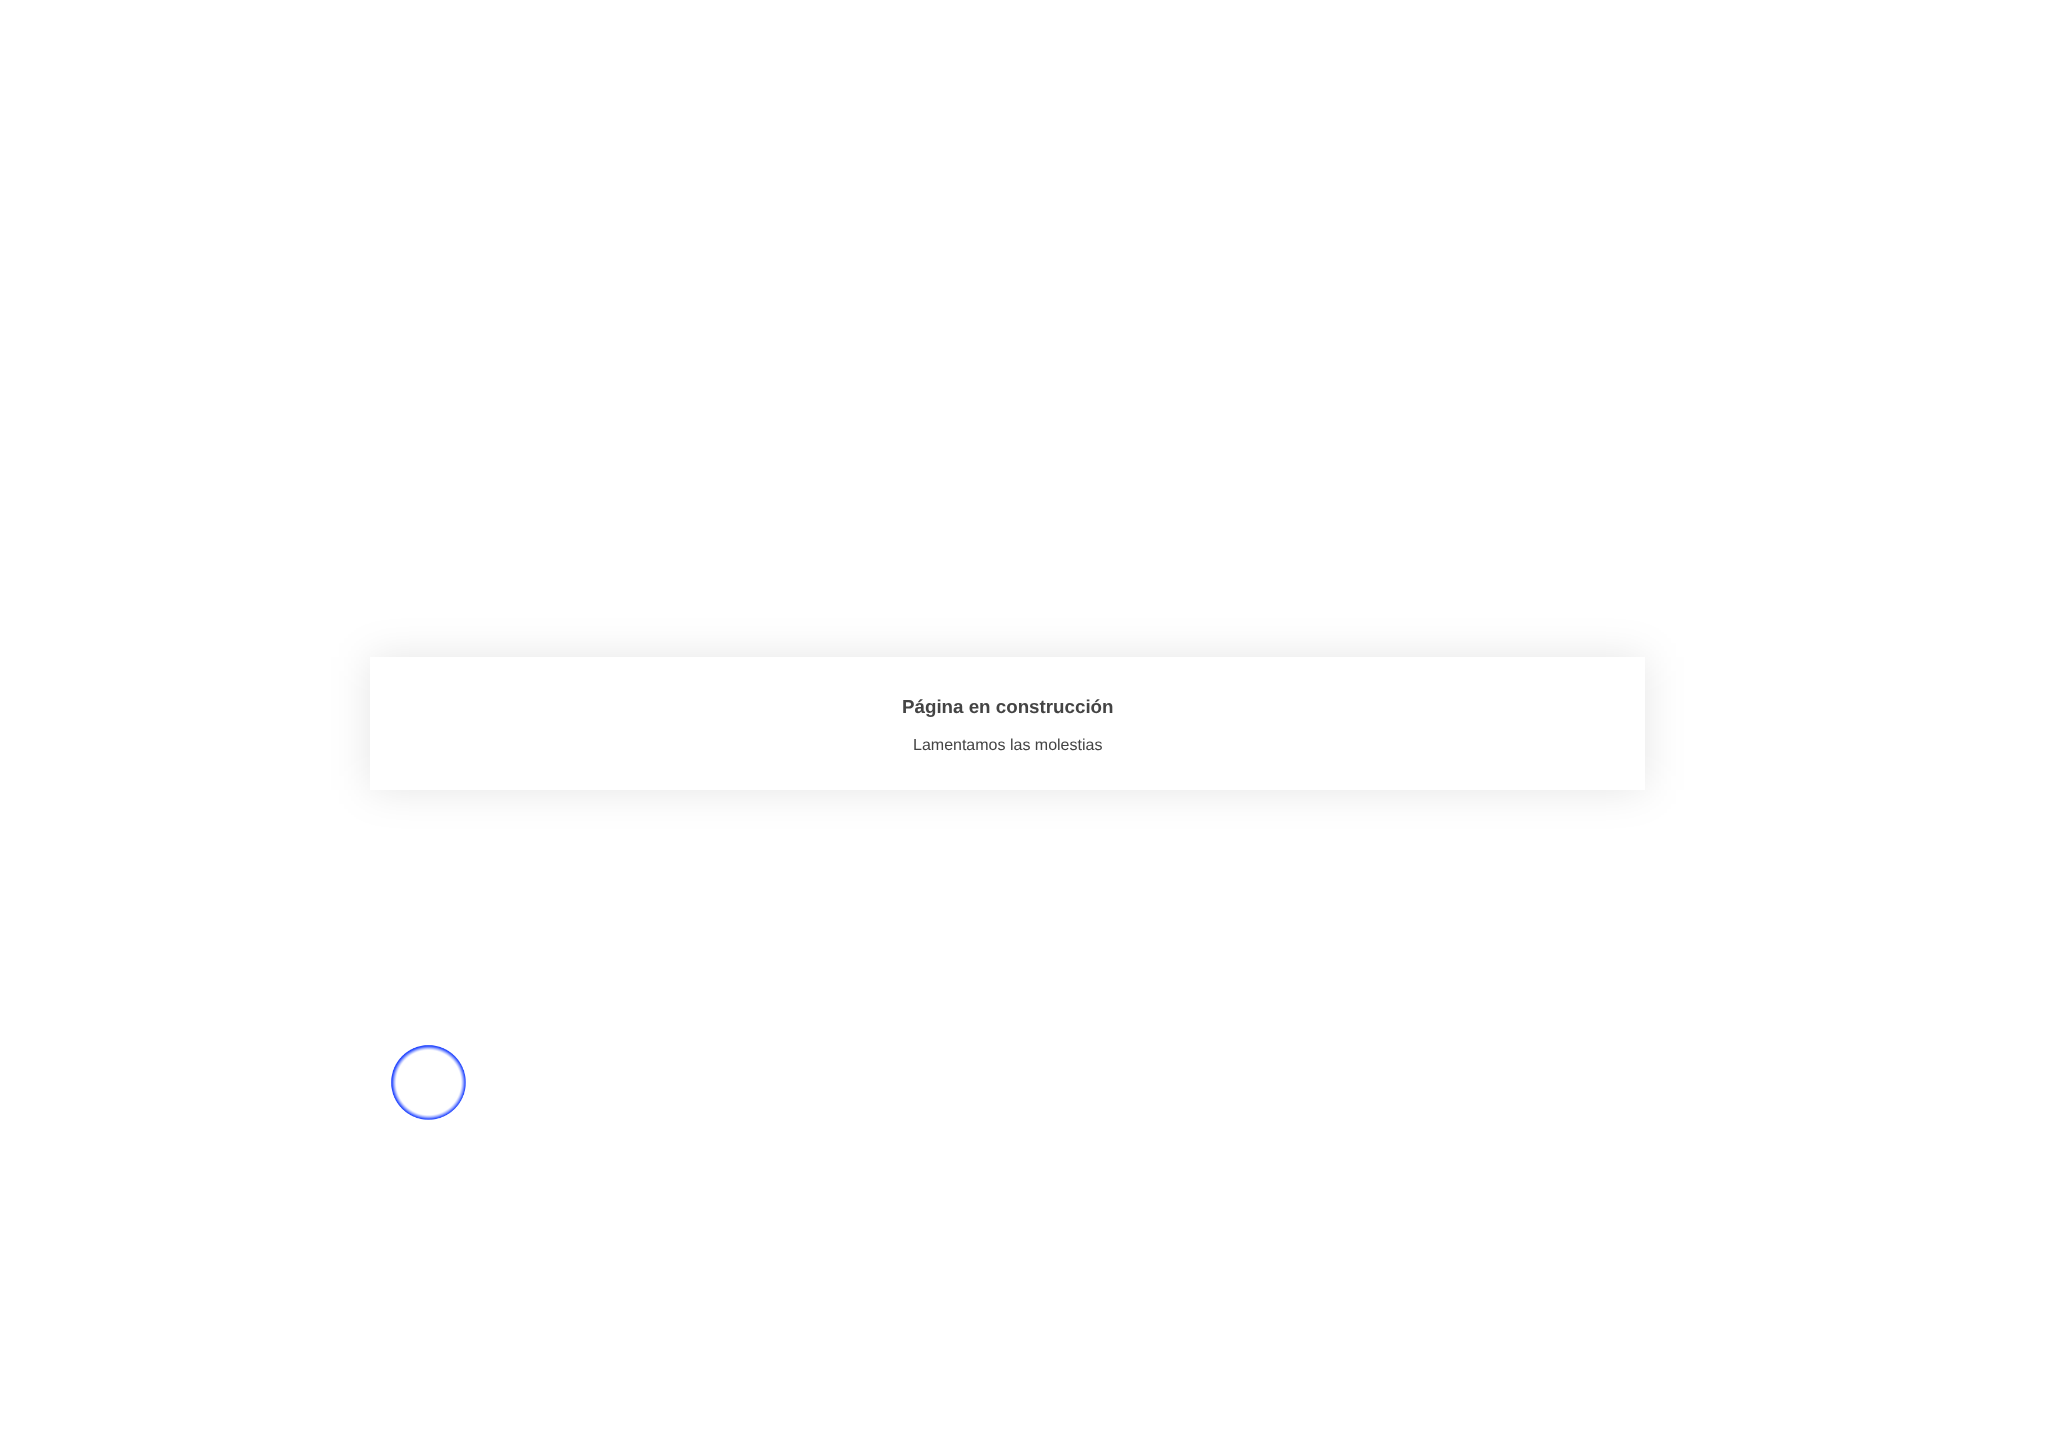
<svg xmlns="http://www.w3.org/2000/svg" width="2056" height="1447">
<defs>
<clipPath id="clip1"><path d="M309 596h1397v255h-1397zm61 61h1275v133h-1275z" clip-rule="evenodd"/></clipPath>
</defs>
<rect width="100%" height="100%" fill="#fff"/>
<g clip-path="url(#clip1)">
<rect x="370" y="657" width="1275" height="133" fill="#0000001a" filter="blur(20px)"/>
</g>
<text x="902" y="713" style="font-family:Liberation Sans;font-size:18.75px;font-weight:bold;fill:#444">Página en construcción</text>
<text x="913" y="750" style="font-family:Liberation Sans;font-size:16px;fill:#444">Lamentamos las molestias</text>
<image x="391" y="1045" width="75" height="75" href="media/1.png"/>
</svg>
